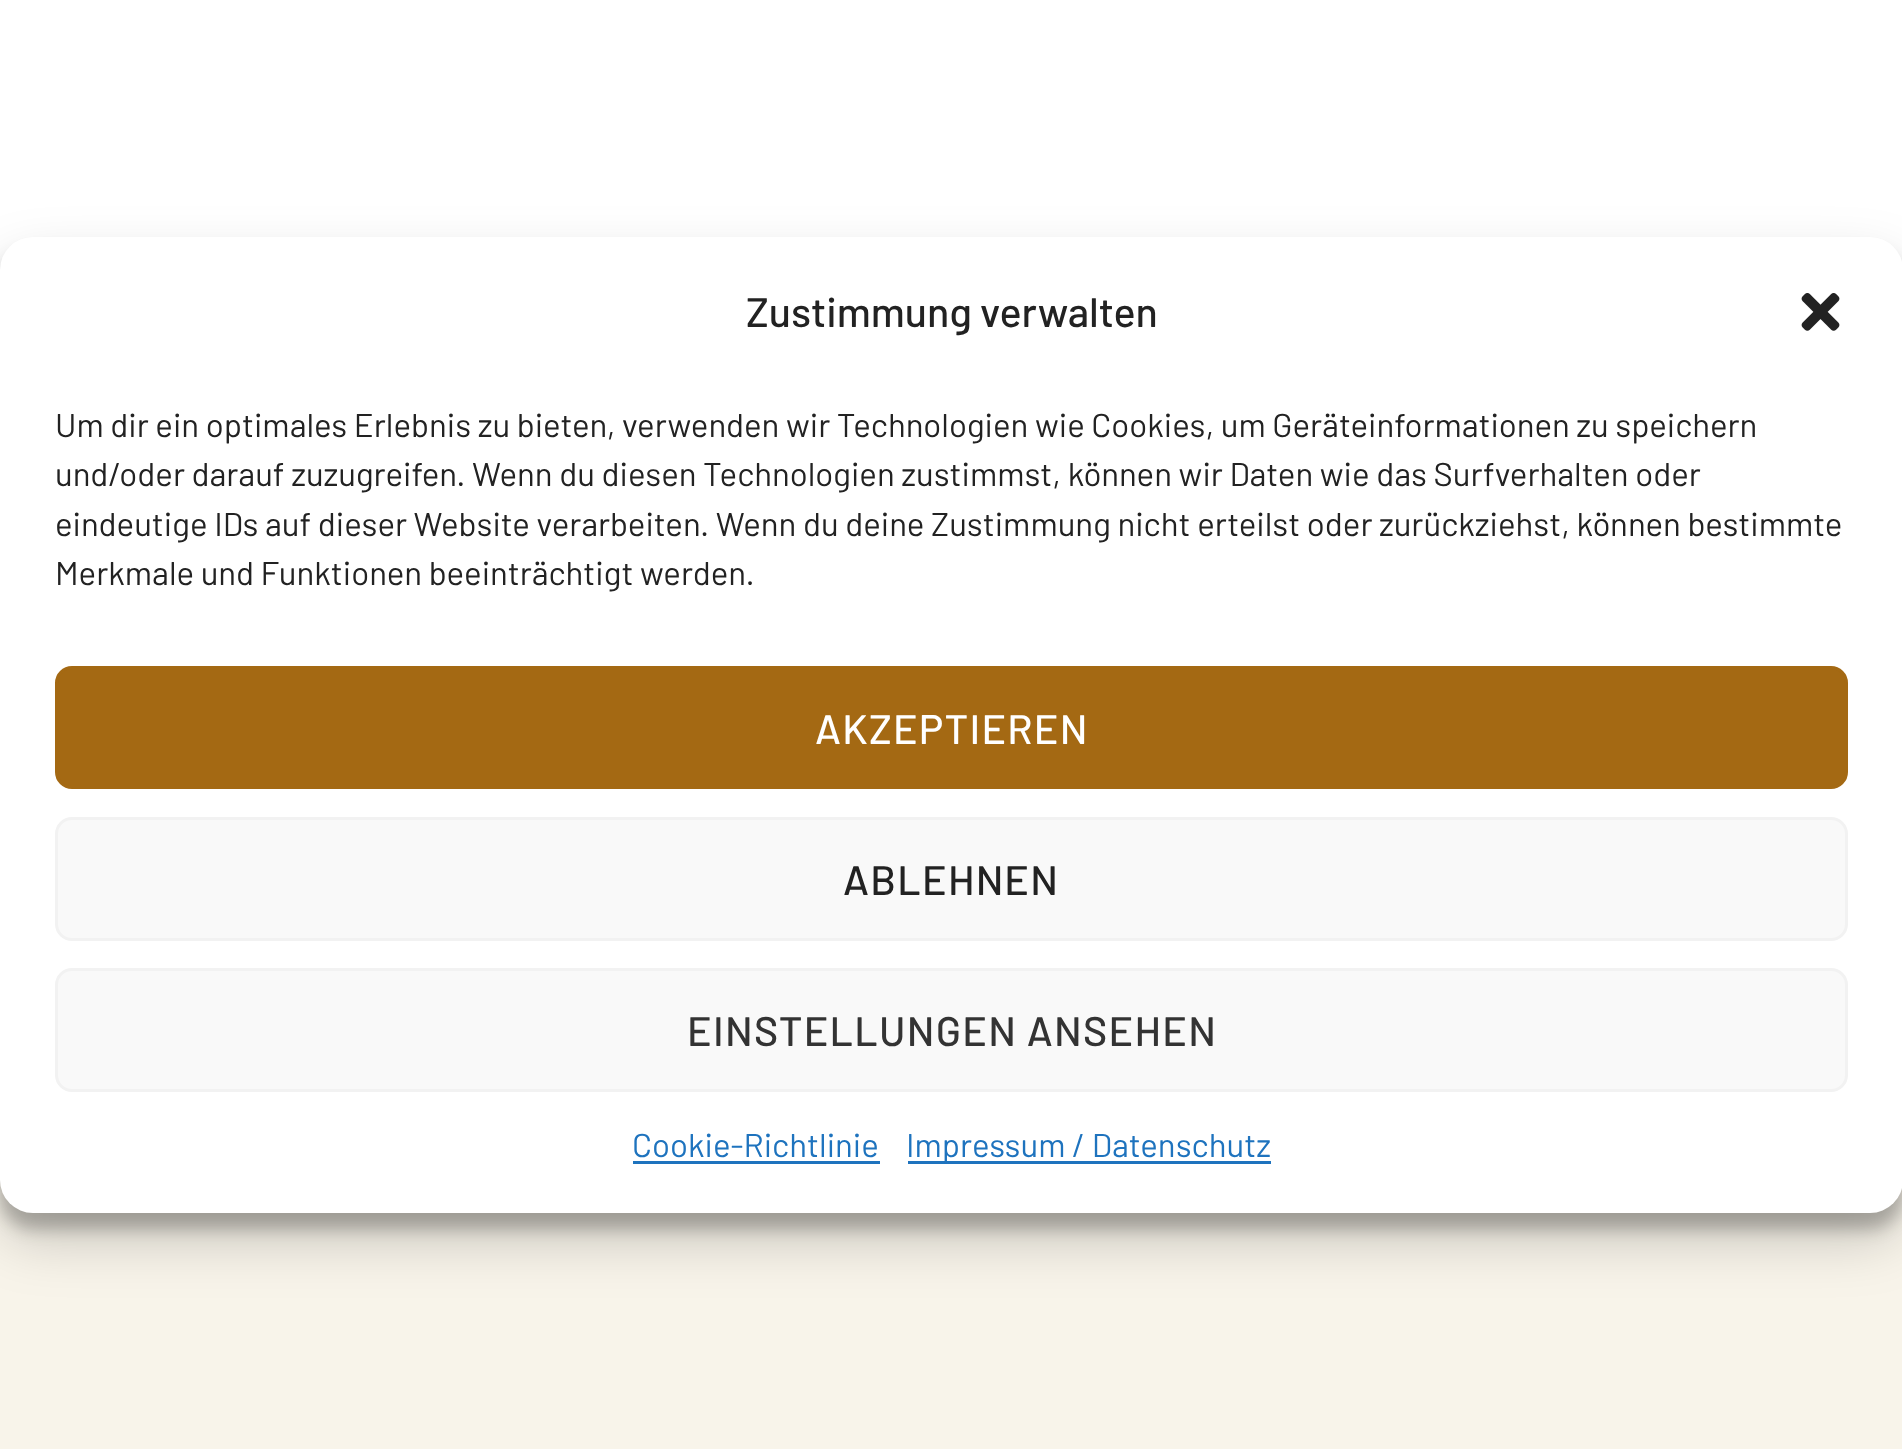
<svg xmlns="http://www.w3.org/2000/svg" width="1902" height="1449">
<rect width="100%" height="100%" fill="#f8f4ea"/>
<rect width="1902" height="270" fill="#fff"/>
<rect y="253" width="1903" height="976" rx="33" fill="#0000003b" filter="blur(8px)"/>
<rect y="264" width="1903" height="976" rx="33" fill="#00000030" filter="blur(27.5px)"/>
<rect y="237" width="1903" height="976" rx="33" fill="#fff"/>
<text x="746" y="327" style="font-family:Barlow;font-size:41.25px;font-weight:500;fill:#222">Zustimmung verwalten</text>
<image x="1801" y="293" width="39" height="38" href="media/1.png"/>
<text x="55" y="437" style="font-family:Barlow;font-size:33px;fill:#222">Um dir ein optimales Erlebnis zu bieten, verwenden wir Technologien wie Cookies, um Geräteinformationen zu speichern</text>
<text x="55" y="486" style="font-family:Barlow;font-size:33px;fill:#222">und/oder darauf zuzugreifen. Wenn du diesen Technologien zustimmst, können wir Daten wie das Surfverhalten oder</text>
<text x="55" y="536" style="font-family:Barlow;font-size:33px;fill:#222">eindeutige IDs auf dieser Website verarbeiten. Wenn du deine Zustimmung nicht erteilst oder zurückziehst, können bestimmte</text>
<text x="55" y="585" style="font-family:Barlow;font-size:33px;fill:#222">Merkmale und Funktionen beeinträchtigt werden.</text>
<rect x="56.5" y="667.5" width="1790" height="120" rx="15.5" fill="#a46913" stroke="#a46913" stroke-width="3"/>
<text x="815" y="744" style="font-family:Barlow;font-size:41.25px;font-weight:500;letter-spacing:1.25px;fill:#fff">AKZEPTIEREN</text>
<rect x="56.5" y="818.5" width="1790" height="121" rx="15.5" fill="#f9f9f9" stroke="#f2f2f2" stroke-width="3"/>
<text x="843" y="895" style="font-family:Barlow;font-size:41.25px;font-weight:500;letter-spacing:1.25px;fill:#222">ABLEHNEN</text>
<rect x="56.5" y="969.5" width="1790" height="121" rx="15.5" fill="#f9f9f9" stroke="#f2f2f2" stroke-width="3"/>
<text x="687" y="1046" style="font-family:Barlow;font-size:41.25px;font-weight:500;letter-spacing:1.25px;fill:#333">EINSTELLUNGEN ANSEHEN</text>
<text x="632" y="1157" style="font-family:Barlow;font-size:33px;fill:#1e73be">Cookie-Richtlinie</text>
<rect x="633" y="1161" width="247" height="3" fill="#1e73be"/>
<rect x="908" y="1161" width="363" height="3" fill="#1e73be"/>
<text x="906" y="1157" style="font-family:Barlow;font-size:33px;fill:#1e73be">Impressum / Datenschutz</text>
</svg>
